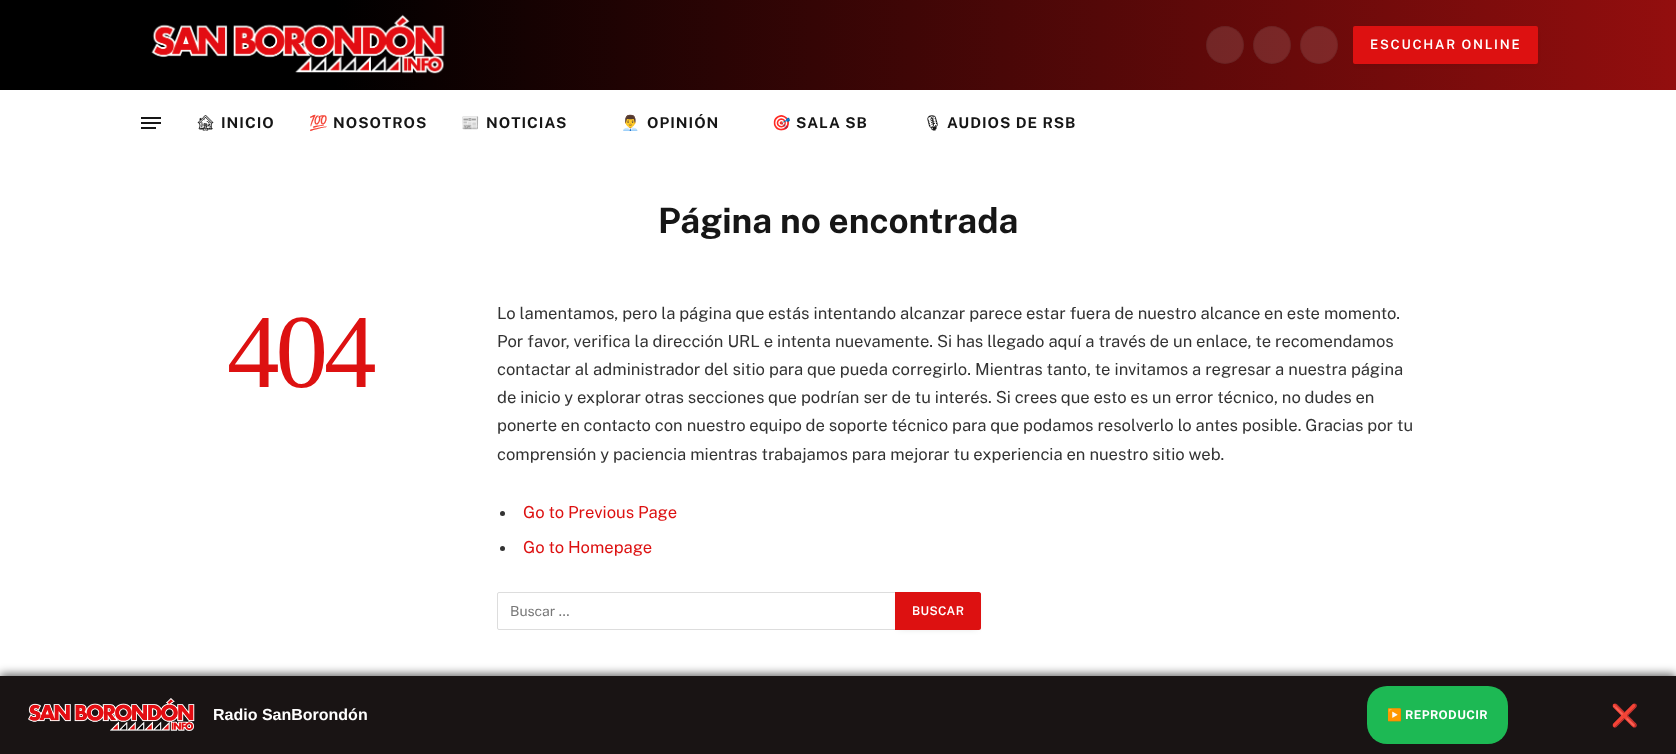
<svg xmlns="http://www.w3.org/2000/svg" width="1676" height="754">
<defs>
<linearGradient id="g1" gradientUnits="userSpaceOnUse" x1="0" y1="45" x2="1676" y2="45"><stop offset="0.2" stop-color="#000"/><stop offset="1" stop-color="#930e0e"/></linearGradient>
</defs>
<rect width="100%" height="100%" fill="#fff"/>
<rect width="1676" height="90" fill="url(#g1)"/>
<image x="151" y="14" width="294" height="60" href="media/1.png"/>
<circle cx="1225" cy="45" r="19" fill="#ffffff1f"/>
<circle cx="1225" cy="45" r="18.5" fill="none" stroke="#00000017"/>
<circle cx="1272" cy="45" r="19" fill="#ffffff1f"/>
<circle cx="1272" cy="45" r="18.5" fill="none" stroke="#00000017"/>
<circle cx="1319" cy="45" r="19" fill="#ffffff1f"/>
<circle cx="1319" cy="45" r="18.5" fill="none" stroke="#00000017"/>
<rect x="1357" y="32" width="177" height="30" fill="#00000029" filter="blur(3.5px)"/>
<rect x="1353" y="26" width="185" height="38" rx="2" fill="#d11"/>
<text x="1370" y="49" style="font-family:Public Sans;font-size:13px;font-weight:600;letter-spacing:1.75px;fill:#fff">ESCUCHAR ONLINE</text>
<rect x="141" y="127" width="15" height="2" fill="#161616"/>
<rect x="141" y="117" width="20" height="2" fill="#161616"/>
<rect x="141" y="122" width="20" height="2" fill="#161616"/>
<text x="196" y="128" style="font-family:Noto Emoji;font-size:15px;font-weight:bold;letter-spacing:1px;fill:#161616">🏚</text>
<text x="221" y="128" style="font-family:Public Sans;font-size:15px;font-weight:bold;letter-spacing:1px;fill:#161616">INICIO</text>
<text x="309" y="128" style="font-family:Noto Color Emoji;font-size:15px;font-weight:bold;letter-spacing:1px;fill:#161616">💯</text>
<text x="333" y="128" style="font-family:Public Sans;font-size:15px;font-weight:bold;letter-spacing:1px;fill:#161616">NOSOTROS</text>
<text x="461" y="128" style="font-family:Noto Color Emoji;font-size:15px;font-weight:bold;letter-spacing:1px;fill:#161616">📰</text>
<text x="486" y="128" style="font-family:Public Sans;font-size:15px;font-weight:bold;letter-spacing:1px;fill:#161616">NOTICIAS</text>
<text x="621" y="128" style="font-family:Noto Color Emoji;font-size:15px;font-weight:bold;letter-spacing:1px;fill:#161616">👨‍💼</text>
<text x="647" y="128" style="font-family:Public Sans;font-size:15px;font-weight:bold;letter-spacing:1px;fill:#161616">OPINIÓN</text>
<text x="772" y="128" style="font-family:Noto Color Emoji;font-size:15px;font-weight:bold;letter-spacing:1px;fill:#161616">🎯</text>
<text x="796" y="128" style="font-family:Public Sans;font-size:15px;font-weight:bold;letter-spacing:1px;fill:#161616">SALA SB</text>
<text x="923" y="128" style="font-family:Noto Emoji;font-size:15px;font-weight:bold;letter-spacing:1px;fill:#161616">🎙</text>
<text x="947" y="128" style="font-family:Public Sans;font-size:15px;font-weight:bold;letter-spacing:1px;fill:#161616">AUDIOS DE RSB</text>
<text x="658" y="233" style="font-family:Public Sans;font-size:35px;font-weight:bold;fill:#161616">Página no encontrada</text>
<text x="227" y="387" style="font-family:Liberation Serif;font-size:105px;letter-spacing:-4px;fill:#d11">404</text>
<text x="497" y="319" style="font-family:Public Sans;font-size:16.6px;fill:#333">Lo lamentamos, pero la página que estás intentando alcanzar parece estar fuera de nuestro alcance en este momento.</text>
<text x="497" y="347" style="font-family:Public Sans;font-size:16.6px;fill:#333">Por favor, verifica la dirección URL e intenta nuevamente. Si has llegado aquí a través de un enlace, te recomendamos</text>
<text x="497" y="375" style="font-family:Public Sans;font-size:16.6px;fill:#333">contactar al administrador del sitio para que pueda corregirlo.</text>
<text x="975" y="375" style="font-family:Public Sans;font-size:16.6px;fill:#333">Mientras tanto, te invitamos a regresar a nuestra página</text>
<text x="497" y="403" style="font-family:Public Sans;font-size:16.6px;fill:#333">de inicio y explorar otras secciones que podrían ser de tu interés. Si crees que esto es un error técnico, no dudes en</text>
<text x="497" y="431" style="font-family:Public Sans;font-size:16.6px;fill:#333">ponerte en contacto con nuestro equipo de soporte técnico para que podamos resolverlo lo antes posible. Gracias por tu</text>
<text x="497" y="460" style="font-family:Public Sans;font-size:16.6px;fill:#333">comprensión y paciencia mientras trabajamos para mejorar tu experiencia en nuestro sitio web.</text>
<circle cx="502.5" cy="513.5" r="2.5" fill="#333"/>
<text x="523" y="518" style="font-family:Public Sans;font-size:16.6px;fill:#d11">Go to Previous Page</text>
<circle cx="502.5" cy="548.5" r="2.5" fill="#333"/>
<text x="523" y="553" style="font-family:Public Sans;font-size:16.6px;fill:#d11">Go to Homepage</text>
<rect x="497.5" y="592.5" width="399" height="37" rx="1.5" fill="none" stroke="#ddd"/>
<text x="510" y="616" style="font-family:Public Sans;font-size:14px;fill:#777">Buscar …</text>
<rect x="899" y="598" width="78" height="30" fill="#00000029" filter="blur(3.5px)"/>
<path d="M895 592h84c1 0 2 1 2 2v34c0 1-1 2-2 2h-84z" fill="#d11"/>
<text x="912" y="615" style="font-family:Public Sans;font-size:12px;font-weight:600;letter-spacing:0.4px;fill:#fff">BUSCAR</text>
<rect x="1606" y="680" width="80" height="60" rx="2" fill="#808080" filter="blur(2.5px)"/>
<rect y="674" width="1676" height="78" fill="#00000099" filter="blur(5px)"/>
<rect y="676" width="1676" height="78" fill="#191414"/>
<image x="28" y="698" width="167" height="33" href="media/2.png"/>
<text x="213" y="720" style="font-family:Liberation Sans;font-size:16px;font-weight:bold;fill:#fff">Radio SanBorondón</text>
<rect x="1367" y="686" width="141" height="58" rx="20" fill="#1db954"/>
<text x="1387" y="719" style="font-family:Noto Color Emoji;font-size:12px;font-weight:bold;letter-spacing:0.4px;fill:#fff">▶️</text>
<text x="1405" y="719" style="font-family:Public Sans;font-size:12px;font-weight:bold;letter-spacing:0.4px;fill:#fff">REPRODUCIR</text>
<text x="1611" y="723" style="font-family:Noto Color Emoji;font-size:22px;font-weight:bold;letter-spacing:1px;fill:#fff">❌</text>
</svg>
